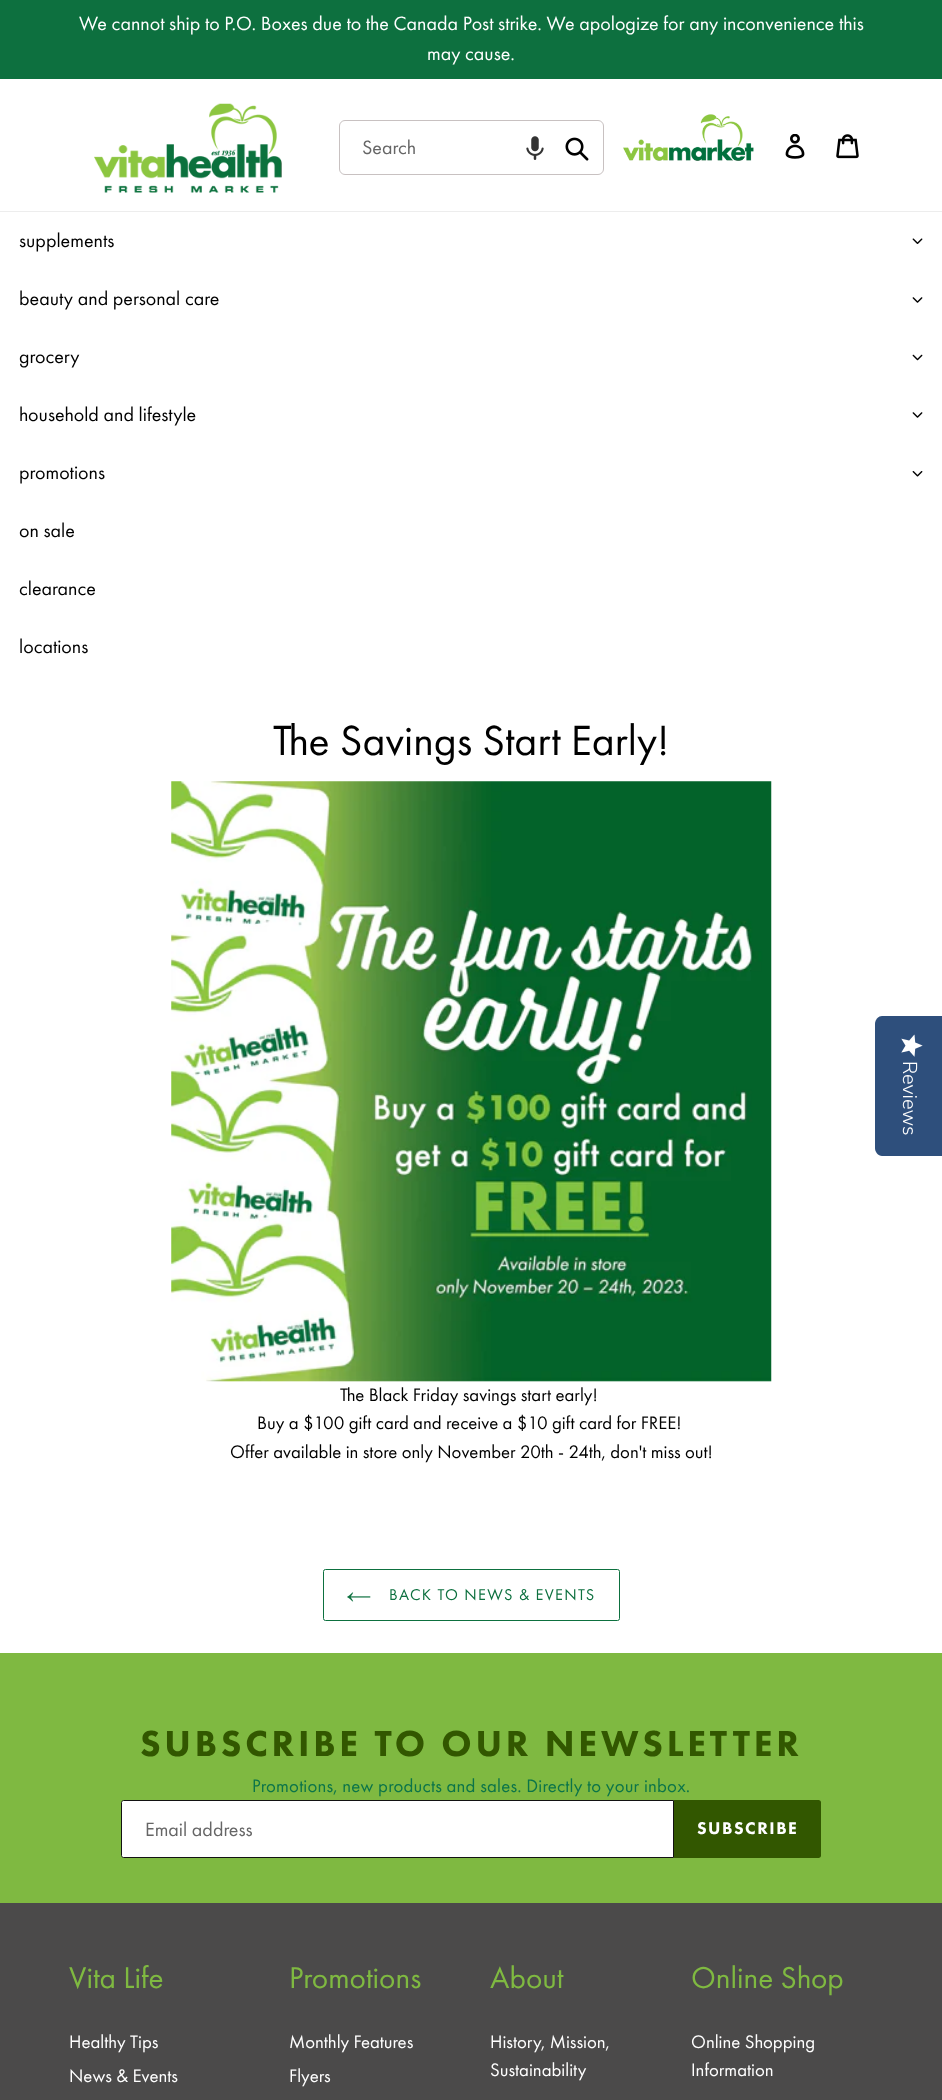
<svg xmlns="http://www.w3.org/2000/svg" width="942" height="2100">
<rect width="100%" height="100%" fill="#fff"/>
<rect width="942" height="79" fill="#0d703f"/>
<text x="79" y="30" style="font-family:Futura PT;font-size:20px;fill:#fff">We cannot ship to P.O. Boxes due to the Canada Post strike. We apologize for any inconvenience this</text>
<text x="427" y="60" style="font-family:Futura PT;font-size:20px;fill:#fff">may cause.</text>
<image x="94" y="103" width="188" height="90" href="media/1.png"/>
<rect x="339.5" y="120.5" width="264" height="54" rx="5.5" fill="none" stroke="#c8c1c1"/>
<text x="362" y="154" style="font-family:Futura PT;font-size:20px;fill:#666">Search</text>
<image x="526" y="136" width="18" height="24" href="media/2.png"/>
<image x="565" y="137" width="24" height="24" href="media/3.png"/>
<image x="623" y="114" width="131" height="47" href="media/4.png"/>
<image x="785" y="134" width="20" height="25" href="media/5.png"/>
<image x="836" y="134" width="23" height="25" href="media/6.png"/>
<rect y="211" width="942" height="1" fill="#ededed"/>
<text x="19" y="247" style="font-family:Futura PT;font-size:20px;fill:#000">supplements</text>
<image x="912" y="238" width="11" height="6" href="media/7.png"/>
<text x="19" y="305" style="font-family:Futura PT;font-size:20px;fill:#000">beauty and personal care</text>
<image x="912" y="297" width="11" height="6" href="media/8.png"/>
<text x="19" y="363" style="font-family:Futura PT;font-size:20px;fill:#000">grocery</text>
<image x="912" y="354" width="11" height="7" href="media/9.png"/>
<text x="19" y="421" style="font-family:Futura PT;font-size:20px;fill:#000">household and lifestyle</text>
<image x="912" y="412" width="11" height="6" href="media/8.png"/>
<text x="19" y="479" style="font-family:Futura PT;font-size:20px;fill:#000">promotions</text>
<image x="912" y="471" width="11" height="6" href="media/10.png"/>
<text x="19" y="537" style="font-family:Futura PT;font-size:20px;fill:#000">on sale</text>
<text x="19" y="595" style="font-family:Futura PT;font-size:20px;fill:#000">clearance</text>
<text x="19" y="653" style="font-family:Futura PT;font-size:20px;fill:#000">locations</text>
<text x="273" y="755" style="font-family:Futura PT;font-size:43.75px;fill:#000">The Savings Start Early!</text>
<image x="171" y="781" width="601" height="601" href="media/11.png"/>
<text x="340" y="1401" style="font-family:Futura PT;font-size:18.75px;fill:#000">The Black Friday savings start early!</text>
<text x="257" y="1429" style="font-family:Futura PT;font-size:18.75px;fill:#000">Buy a $100 gift card and receive a $10 gift card for FREE!</text>
<text x="230" y="1458" style="font-family:Futura PT;font-size:18.75px;fill:#000">Offer available in store only November 20th - 24th, don't miss out!</text>
<rect x="323.5" y="1569.5" width="296" height="51" rx="2" fill="none" stroke="#0d703f"/>
<image x="347" y="1592" width="24" height="10" href="media/12.png"/>
<text x="389" y="1600" style="font-family:Futura PT;font-size:16.25px;letter-spacing:1.3px;fill:#0d703f">BACK TO NEWS &amp; EVENTS</text>
<rect y="1653" width="942" height="250" fill="#7fb941"/>
<text x="140" y="1756" style="font-family:Futura PT;font-size:37.5px;font-weight:900;letter-spacing:3.75px;fill:#325700">SUBSCRIBE TO OUR NEWSLETTER</text>
<text x="252" y="1792" style="font-family:Futura PT;font-size:18.75px;letter-spacing:0.2px;fill:#0b7449">Promotions, new products and sales. Directly to your inbox.</text>
<path d="M123.5 1800.5h550v57h-550c-1 0-2-1-2-2v-53c0-1 1-2 2-2z" fill="#fff" stroke="#121212"/>
<text x="145" y="1836" style="font-family:Futura PT;font-size:20px;fill:#666">Email address</text>
<path d="M674 1800h144.5c1.5 0 2.5 1 2.5 2.5v53c0 1.5-1 2.5-2.5 2.5h-144.5z" fill="#325700"/>
<text x="697" y="1834" style="font-family:Futura PT;font-size:17.5px;font-weight:900;letter-spacing:1.5px;fill:#fff">SUBSCRIBE</text>
<rect y="1903" width="942" height="197" fill="#4b4a4a"/>
<text x="69" y="1988" style="font-family:Futura PT;font-size:31.25px;fill:#7fb941">Vita Life</text>
<text x="69" y="2048" style="font-family:Futura PT;font-size:18.75px;fill:#fff">Healthy Tips</text>
<text x="69" y="2082" style="font-family:Futura PT;font-size:18.75px;fill:#fff">News &amp; Events</text>
<text x="289" y="1988" style="font-family:Futura PT;font-size:31.25px;fill:#7fb941">Promotions</text>
<text x="289" y="2048" style="font-family:Futura PT;font-size:18.75px;fill:#fff">Monthly Features</text>
<text x="289" y="2082" style="font-family:Futura PT;font-size:18.75px;fill:#fff">Flyers</text>
<text x="490" y="1988" style="font-family:Futura PT;font-size:31.25px;fill:#7fb941">About</text>
<text x="490" y="2048" style="font-family:Futura PT;font-size:18.75px;fill:#fff">History, Mission,</text>
<text x="490" y="2076" style="font-family:Futura PT;font-size:18.75px;fill:#fff">Sustainability</text>
<text x="691" y="1988" style="font-family:Futura PT;font-size:31.25px;fill:#7fb941">Online Shop</text>
<text x="691" y="2048" style="font-family:Futura PT;font-size:18.75px;fill:#fff">Online Shopping</text>
<text x="691" y="2076" style="font-family:Futura PT;font-size:18.75px;fill:#fff">Information</text>
<path d="M942 1016v140h-60c-4 0-7-4-7-8v-124c0-4 3-8 7-8z" fill="#2e4f7c"/>
<image x="901" y="1034" width="22" height="23" href="media/13.png"/>
<text x="903" y="1061" transform="rotate(90 903 1061)" style="font-family:Nunito Sans;font-size:20px;font-weight:300;fill:#fff">Reviews</text>
</svg>
